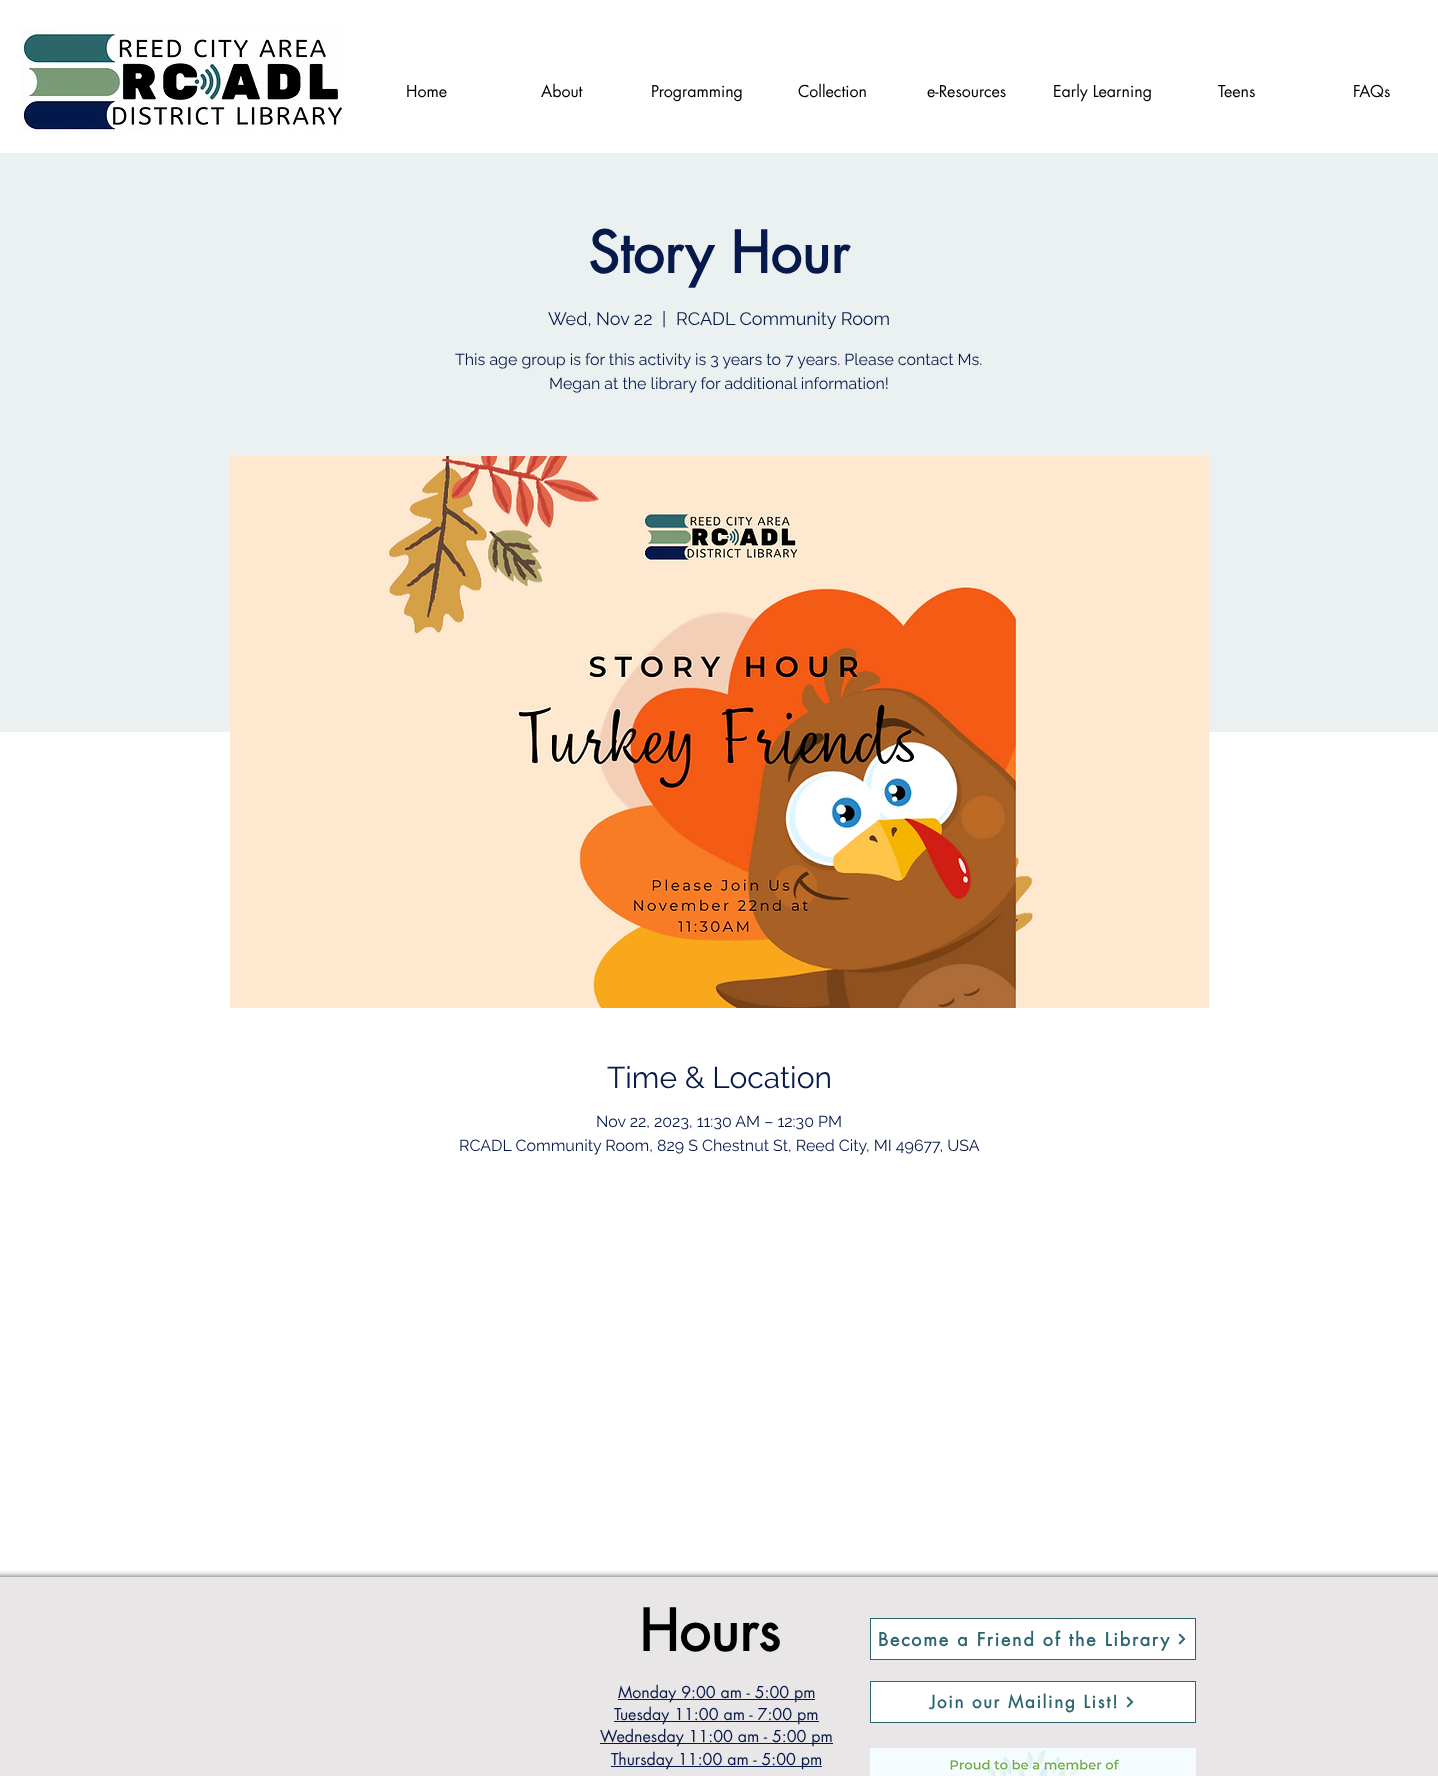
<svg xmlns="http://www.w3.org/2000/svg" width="1438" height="1776">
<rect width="100%" height="100%" fill="#fff"/>
<image x="20" y="28" width="323" height="104" href="media/1.png"/>
<text x="406" y="97" style="font-family:futura;font-size:16px;fill:#000">Home</text>
<text x="541" y="97" style="font-family:futura;font-size:16px;fill:#000">About</text>
<text x="651" y="97" style="font-family:futura;font-size:16px;fill:#000">Programming</text>
<text x="798" y="97" style="font-family:futura;font-size:16px;fill:#000">Collection</text>
<text x="927" y="97" style="font-family:futura;font-size:16px;fill:#000">e-Resources</text>
<text x="1053" y="97" style="font-family:futura;font-size:16px;fill:#000">Early Learning</text>
<text x="1218" y="97" style="font-family:futura;font-size:16px;fill:#000">Teens</text>
<text x="1353" y="97" style="font-family:futura;font-size:16px;fill:#000">FAQs</text>
<rect y="153" width="1438" height="579" fill="#ebf1f1"/>
<text x="588" y="273" style="font-family:futura;font-size:56px;font-weight:bold;fill:#07194b">Story Hour</text>
<text x="548" y="325" style="font-family:Raleway;font-size:18px;fill:#07194b">Wed, Nov 22</text>
<text x="662" y="325" style="font-family:Raleway;font-size:18px;fill:#07194b">|</text>
<text x="676" y="325" style="font-family:Raleway;font-size:18px;fill:#07194b">RCADL Community Room</text>
<text x="455" y="365" style="font-family:Raleway;font-size:16px;fill:#07194b">This age group is for this activity is 3 years to 7 years. Please contact Ms.</text>
<text x="549" y="389" style="font-family:Raleway;font-size:16px;fill:#07194b">Megan at the library for additional information!</text>
<image x="230" y="456" width="979" height="552" href="media/2.png"/>
<text x="607" y="1088" style="font-family:Raleway;font-size:30px;fill:#07194b">Time &amp; Location</text>
<text x="596" y="1127" style="font-family:Raleway;font-size:16px;fill:#07194b">Nov 22, 2023, 11:30 AM – 12:30 PM</text>
<text x="459" y="1151" style="font-family:Raleway;font-size:16px;fill:#07194b">RCADL Community Room, 829 S Chestnut St, Reed City, MI 49677, USA</text>
<rect x="-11" y="1577" width="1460" height="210" fill="#000000b3" filter="blur(3.5px)"/>
<rect y="1577" width="1438" height="199" fill="#e8e6e6"/>
<text x="639" y="1651" style="font-family:futura;font-size:56px;font-weight:bold;fill:#000">Hours</text>
<rect x="870.5" y="1618.5" width="325" height="41" fill="#fff" stroke="#2c666e"/>
<text x="878" y="1646" style="font-family:futura;font-size:18px;font-weight:bold;letter-spacing:1.8px;fill:#2c666e">Become a Friend of the Library</text>
<image x="1178" y="1633" width="8" height="12" href="media/3.png"/>
<rect x="870.5" y="1681.5" width="325" height="41" fill="#fff" stroke="#2c666e"/>
<text x="930" y="1708" style="font-family:futura;font-size:17px;font-weight:bold;letter-spacing:1.7px;fill:#2c666e">Join our Mailing List!</text>
<image x="1126" y="1696" width="8" height="12" href="media/3.png"/>
<image x="870" y="1748" width="326" height="28" href="media/4.png"/>
<rect x="618" y="1699" width="197" height="1" fill="#07194b"/>
<text x="618" y="1698" style="font-family:futura;font-size:16px;fill:#07194b">Monday 9:00 am - 5:00 pm</text>
<rect x="614" y="1721" width="205" height="1" fill="#07194b"/>
<text x="614" y="1720" style="font-family:futura;font-size:16px;fill:#07194b">Tuesday 11:00 am - 7:00 pm</text>
<rect x="600" y="1743" width="233" height="1" fill="#07194b"/>
<text x="600" y="1742" style="font-family:futura;font-size:16px;fill:#07194b">Wednesday 11:00 am - 5:00 pm</text>
<rect x="611" y="1766" width="211" height="1" fill="#07194b"/>
<text x="611" y="1765" style="font-family:futura;font-size:16px;fill:#07194b">Thursday 11:00 am - 5:00 pm</text>
</svg>
